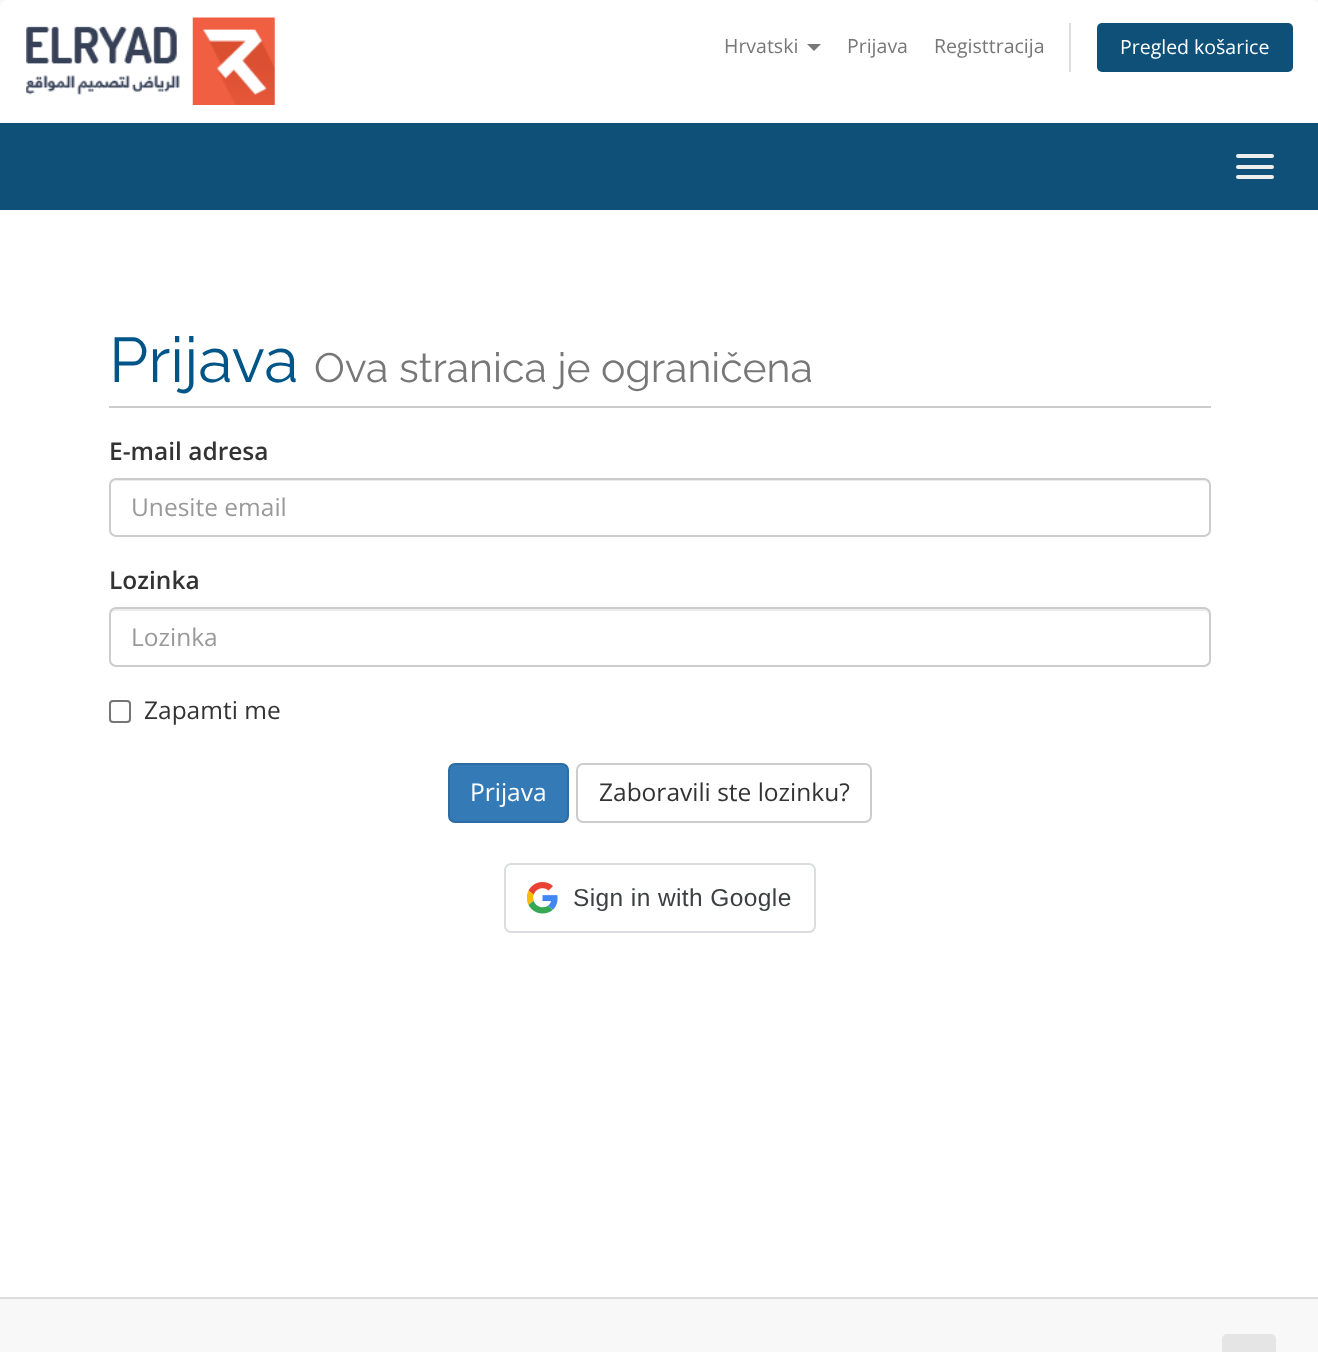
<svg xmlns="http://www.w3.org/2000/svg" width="1318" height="1352">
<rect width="100%" height="100%" fill="#f8f8f8"/>
<path d="M9 0h1302c5 0 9 4 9 9v114h-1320v-114c0-5 4-9 9-9z" fill="#fff"/>
<image x="26" y="17" width="249" height="88" href="media/1.png"/>
<text x="724" y="53" style="font-family:Open Sans;font-size:19.5px;fill:#777">Hrvatski</text>
<path d="M807 44h14l-7 7z" fill="#777"/>
<text x="847" y="53" style="font-family:Open Sans;font-size:19.5px;fill:#777">Prijava</text>
<text x="934" y="53" style="font-family:Open Sans;font-size:19.5px;fill:#777">Registtracija</text>
<rect x="1069" y="23" width="2" height="49" fill="#ddd"/>
<rect x="1097" y="23" width="196" height="49" rx="5" fill="#0e5077"/>
<text x="1120" y="54" style="font-family:Open Sans;font-size:19.5px;fill:#fff">Pregled košarice</text>
<rect y="123" width="1318" height="87" fill="#0e5077"/>
<rect x="1236" y="154" width="38" height="4" rx="2" fill="#eee"/>
<rect x="1236" y="165" width="38" height="4" rx="2" fill="#eee"/>
<rect x="1236" y="175" width="38" height="4" rx="2" fill="#eee"/>
<rect y="210" width="1318" height="1087" fill="#fff"/>
<rect x="109" y="406" width="1102" height="2" fill="#ccc"/>
<text x="109" y="382" style="font-family:Raleway;font-size:63px;fill:#058">Prijava</text>
<text x="314" y="382" style="font-family:Raleway;font-size:41px;fill:#777">Ova stranica je ograničena</text>
<text x="109" y="460" style="font-family:Open Sans;font-size:24.5px;font-weight:600;fill:#333">E-mail adresa</text>
<path d="M116 481h1088c3 0 5 3 5 5c0-3-2-6-5-6h-1089c-3 0-5 3-5 6c0-2 3-5 6-5z" fill="#ececec"/>
<rect x="110" y="479" width="1100" height="57" rx="6" fill="none" stroke="#ccc" stroke-width="2"/>
<text x="131" y="516" style="font-family:Open Sans;font-size:24.5px;fill:#999">Unesite email</text>
<text x="109" y="589" style="font-family:Open Sans;font-size:24.5px;font-weight:600;fill:#333">Lozinka</text>
<path d="M116 611h1088c3 0 5 2 5 5v-2c0-3-2-5-5-5h-1089c-3 0-5 2-5 5v2c0-3 3-5 6-5z" fill="#ececec"/>
<rect x="110" y="608" width="1100" height="58" rx="6" fill="none" stroke="#ccc" stroke-width="2"/>
<text x="131" y="646" style="font-family:Open Sans;font-size:24.5px;fill:#999">Lozinka</text>
<rect x="110" y="701" width="20" height="21" rx="3" fill="none" stroke="#767676" stroke-width="2"/>
<text x="144" y="719" style="font-family:Open Sans;font-size:24.5px;fill:#333">Zapamti me</text>
<rect x="449" y="764" width="119" height="58" rx="6" fill="#337ab7" stroke="#2e6da4" stroke-width="2"/>
<text x="470" y="801" style="font-family:Open Sans;font-size:24.5px;fill:#fff">Prijava</text>
<rect x="577" y="764" width="294" height="58" rx="6" fill="none" stroke="#ccc" stroke-width="2"/>
<text x="599" y="801" style="font-family:Open Sans;font-size:24.5px;fill:#333">Zaboravili ste lozinku?</text>
<rect x="505" y="864" width="310" height="68" rx="6" fill="none" stroke="#dadce0" stroke-width="2"/>
<image x="527" y="882" width="31" height="32" href="media/2.png"/>
<text x="573" y="906" style="font-family:Liberation Sans;font-size:24.5px;letter-spacing:0.4px;fill:#3c4043">Sign in with Google</text>
<rect y="1297" width="1318" height="2" fill="#ddd"/>
<rect x="1222" y="1334" width="54" height="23" rx="5" fill="#e5e5e5"/>
</svg>
